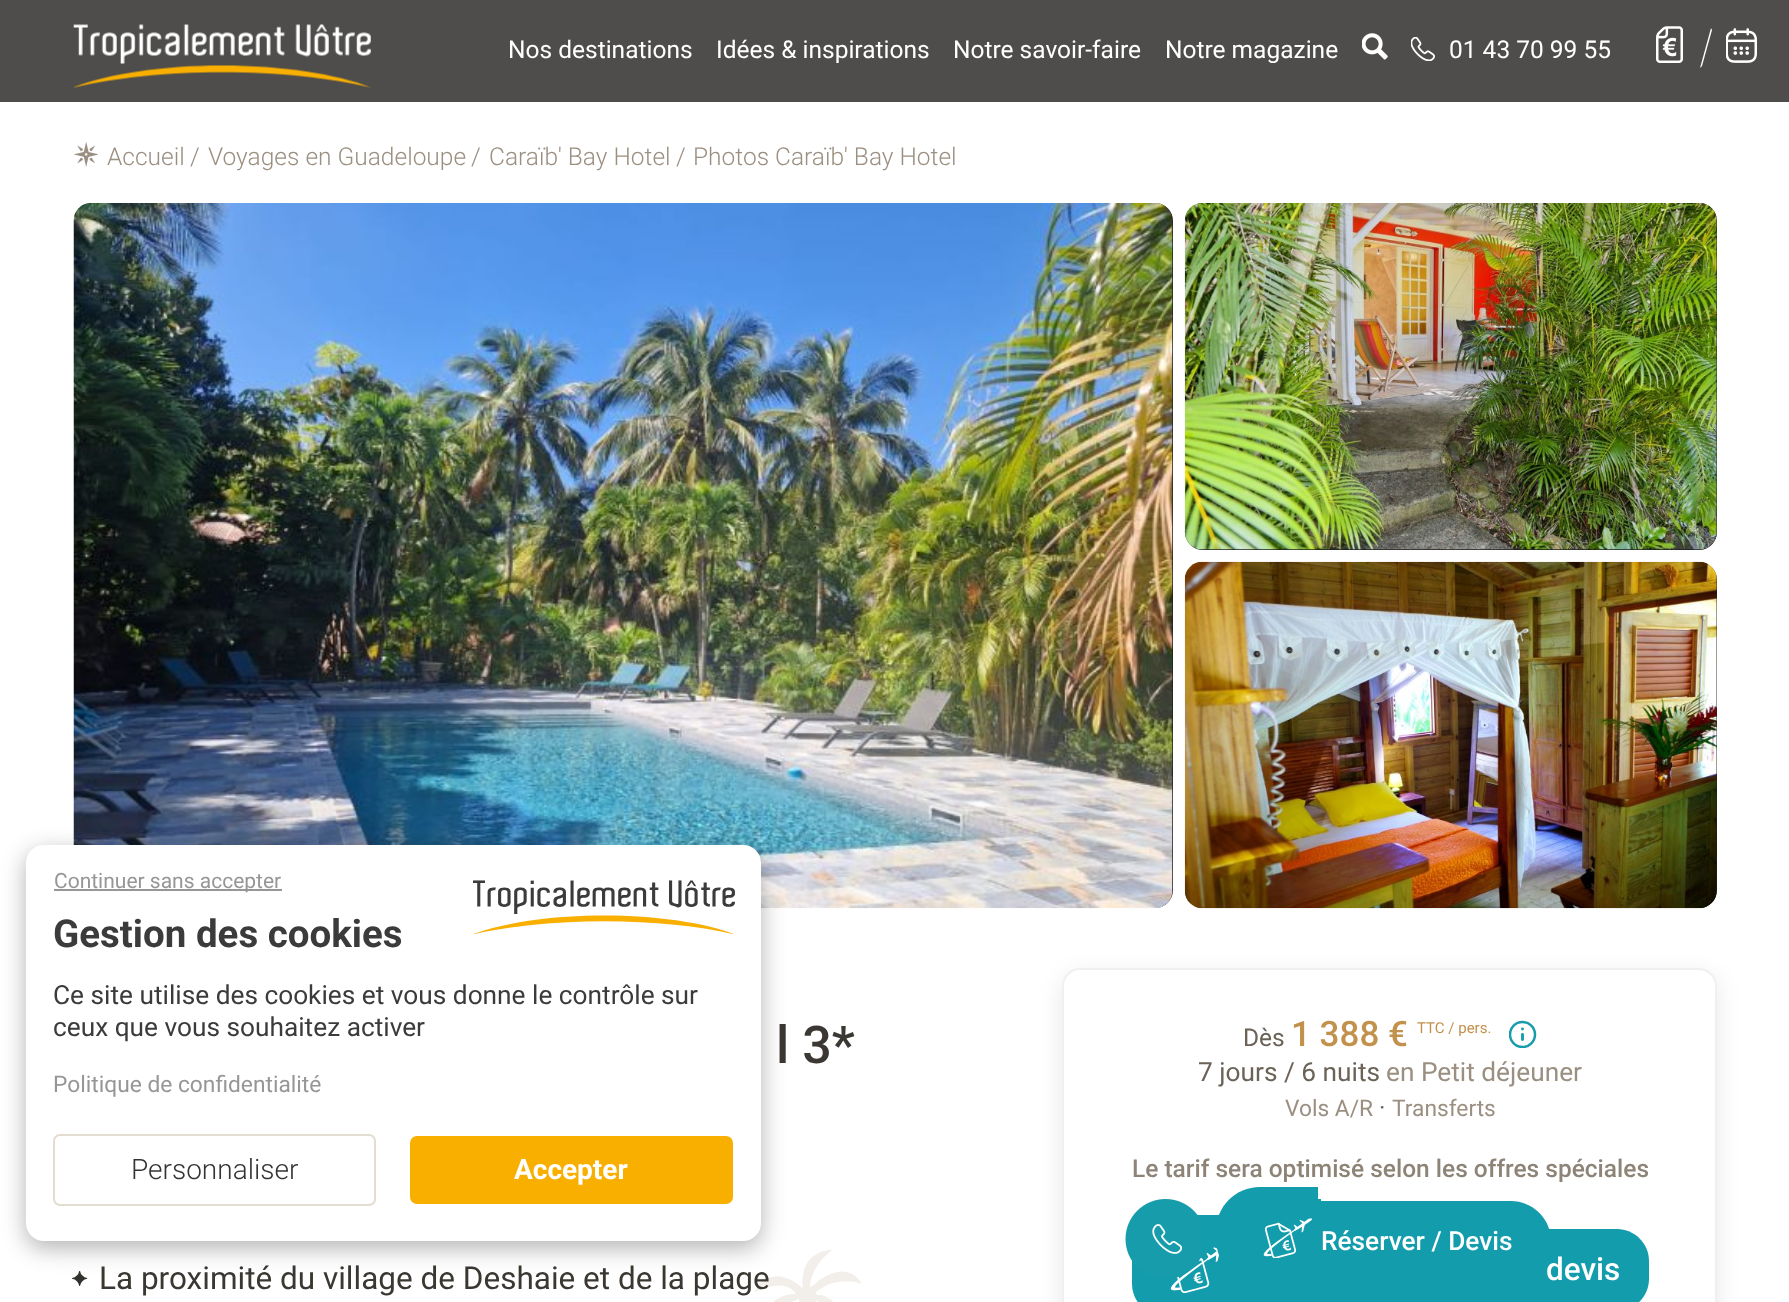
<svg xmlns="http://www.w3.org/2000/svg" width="1789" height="1302">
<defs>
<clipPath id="clip1"><path d="M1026 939h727v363h-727zm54 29h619c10 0 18 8 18 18v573c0 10-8 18-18 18h-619c-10 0-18-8-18-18v-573c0-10 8-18 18-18z" clip-rule="evenodd"/></clipPath>
<clipPath id="clip2"><rect x="1509" y="1020" width="28" height="28"/></clipPath>
</defs>
<rect width="100%" height="100%" fill="#fff"/>
<rect width="1789" height="102" fill="#4e4d4c"/>
<image x="73" y="24" width="298" height="64" href="media/1.png"/>
<text x="508" y="58" style="font-family:Roboto;font-size:24.5px;fill:#fff">Nos destinations</text>
<text x="716" y="58" style="font-family:Roboto;font-size:24.5px;fill:#fff">Idées &amp; inspirations</text>
<text x="953" y="58" style="font-family:Roboto;font-size:24.5px;fill:#fff">Notre savoir-faire</text>
<text x="1165" y="58" style="font-family:Roboto;font-size:24.5px;fill:#fff">Notre magazine</text>
<image x="1362" y="33" width="26" height="27" href="media/2.png"/>
<image x="1411" y="37" width="24" height="24" href="media/3.png"/>
<text x="1449" y="58" style="font-family:Roboto;font-size:24.5px;fill:#fff">01 43 70 99 55</text>
<image x="1656" y="26" width="27" height="37" href="media/4.png"/>
<path d="M1700 68l11-40l1 2l-10 36z" fill="#fff"/>
<image x="1726" y="28" width="31" height="35" href="media/5.png"/>
<image x="74" y="142" width="24" height="25" href="media/6.png"/>
<text x="107" y="165" style="font-family:Roboto;font-size:24.5px;font-weight:300;fill:#9a8f81">Accueil</text>
<text x="190" y="165" style="font-family:Roboto;font-size:24.5px;font-weight:300;fill:#9a8f81">/</text>
<text x="208" y="165" style="font-family:Roboto;font-size:24.5px;font-weight:300;fill:#9a8f81">Voyages en Guadeloupe</text>
<text x="471" y="165" style="font-family:Roboto;font-size:24.5px;font-weight:300;fill:#9a8f81">/</text>
<text x="489" y="165" style="font-family:Roboto;font-size:24.5px;font-weight:300;fill:#9a8f81">Caraïb' Bay Hotel</text>
<text x="676" y="165" style="font-family:Roboto;font-size:24.5px;font-weight:300;fill:#9a8f81">/</text>
<text x="693" y="165" style="font-family:Roboto;font-size:24.5px;font-weight:300;fill:#9a8f81">Photos Caraïb' Bay Hotel</text>
<rect x="74" y="203" width="1099" height="705" rx="18" fill="#21201f"/>
<image x="73" y="203" width="1100" height="706" href="media/7.png"/>
<rect x="1185" y="203" width="532" height="347" rx="18" fill="#21201f"/>
<image x="1184" y="203" width="533" height="347" href="media/8.png"/>
<rect x="1185" y="562" width="532" height="346" rx="18" fill="#21201f"/>
<image x="1184" y="561" width="533" height="348" href="media/9.png"/>
<text x="776" y="1063" style="font-family:Roboto;font-size:52px;font-weight:500;fill:#3b3833">l 3*</text>
<image x="755" y="1250" width="107" height="52" href="media/10.png"/>
<image x="72" y="1271" width="16" height="15" href="media/11.png"/>
<text x="99" y="1289" style="font-family:Roboto;font-size:31.5px;fill:#3b3833">La proximité du village de Deshaie et de la plage</text>
<g clip-path="url(#clip1)">
<rect x="1062" y="975" width="655" height="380" rx="18" fill="#00000017" filter="blur(11.5px)"/>
</g>
<rect x="1063" y="969" width="653" height="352" rx="17" fill="none" stroke="#f0f0f0" stroke-width="2"/>
<text x="1243" y="1046" style="font-family:Roboto;font-size:24.5px;fill:#6b6357">Dès</text>
<text x="1291" y="1046" style="font-family:Roboto;font-size:35px;font-weight:500;fill:#c2914c">1 388 €</text>
<text x="1417" y="1033" style="font-family:Roboto;font-size:15px;fill:#c2914c">TTC / pers.</text>
<g clip-path="url(#clip2)">
<circle cx="1522.5" cy="1034.5" r="12.5" fill="none" stroke="#179cab" stroke-width="2.5"/>
</g>
<path d="M1522.5 1039.5v-5m0-5.5h0" fill="none" stroke="#179cab" stroke-width="2.9" stroke-linecap="round" stroke-linejoin="round"/>
<text x="1198" y="1081" style="font-family:Roboto;font-size:26.25px;fill:#6b6357">7 jours / 6 nuits</text>
<text x="1386" y="1081" style="font-family:Roboto;font-size:26.25px;fill:#9a8f81">en Petit déjeuner</text>
<text x="1285" y="1116" style="font-family:Roboto;font-size:22.75px;fill:#9a8f81">Vols A/R</text>
<text x="1379" y="1116" style="font-family:Roboto;font-size:24.5px;fill:#6b6357">·</text>
<text x="1392" y="1116" style="font-family:Roboto;font-size:22.75px;fill:#9a8f81">Transferts</text>
<text x="1132" y="1177" style="font-family:Roboto;font-size:24.5px;font-weight:500;fill:#8d8477">Le tarif sera optimisé selon les offres spéciales</text>
<path d="M1164 1215h72v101h-72c-17.5 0-32-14.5-32-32v-37c0-17.5 14.5-32 32-32z" fill="#139cab"/>
<image x="1170" y="1247" width="49" height="46" href="media/12.png"/>
<path d="M1232 1229h385c17.5 0 32 14.5 32 32v18c0 17.5-14.5 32-32 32h-385z" fill="#139cab"/>
<text x="1546" y="1280" style="font-family:Roboto;font-size:31.5px;font-weight:500;fill:#fff">devis</text>
<rect x="26" y="852" width="735" height="396" rx="18" fill="#0000004d" filter="blur(11.5px)"/>
<rect x="26" y="845" width="735" height="396" rx="18" fill="#fff"/>
<image x="473" y="880" width="262" height="55" href="media/13.png"/>
<rect x="54" y="889" width="228" height="2" fill="#969696"/>
<text x="54" y="888" style="font-family:Roboto;font-size:21px;fill:#969696">Continuer sans accepter</text>
<text x="53" y="947" style="font-family:Roboto;font-size:38.5px;font-weight:bold;fill:#3b3b3b">Gestion des cookies</text>
<text x="53" y="1004" style="font-family:Roboto;font-size:26.25px;fill:#3b3b3b">Ce site utilise des cookies et vous donne le contrôle sur</text>
<text x="53" y="1036" style="font-family:Roboto;font-size:26.25px;fill:#3b3b3b">ceux que vous souhaitez activer</text>
<text x="53" y="1092" style="font-family:Roboto;font-size:22.75px;fill:#969696">Politique de confidentialité</text>
<rect x="54" y="1135" width="321" height="70" rx="6" fill="none" stroke="#e3dcd1" stroke-width="2"/>
<text x="131" y="1179" style="font-family:Roboto;font-size:28px;font-weight:300;fill:#333">Personnaliser</text>
<rect x="410" y="1136" width="323" height="68" rx="7" fill="#f8af00"/>
<text x="514" y="1179" style="font-family:Roboto;font-size:28px;font-weight:bold;fill:#fff">Accepter</text>
<image x="1125" y="1199" width="76" height="79" href="media/14.png"/>
<path d="M1260 1187h58v96h-58c-24.5 0-44-19.5-44-44v-8c0-24.5 19.5-44 44-44z" fill="#139cab"/>
<image x="1263" y="1218" width="49" height="40" href="media/15.png"/>
<path d="M1321 1201h190c22 0 40 18 40 40c0 22-18 40-40 40h-190z" fill="#139cab"/>
<text x="1321" y="1250" style="font-family:Roboto;font-size:26.25px;font-weight:500;fill:#fff">Réserver / Devis</text>
<rect x="1318" y="1199" width="3" height="30" fill="#139cab"/>
</svg>
